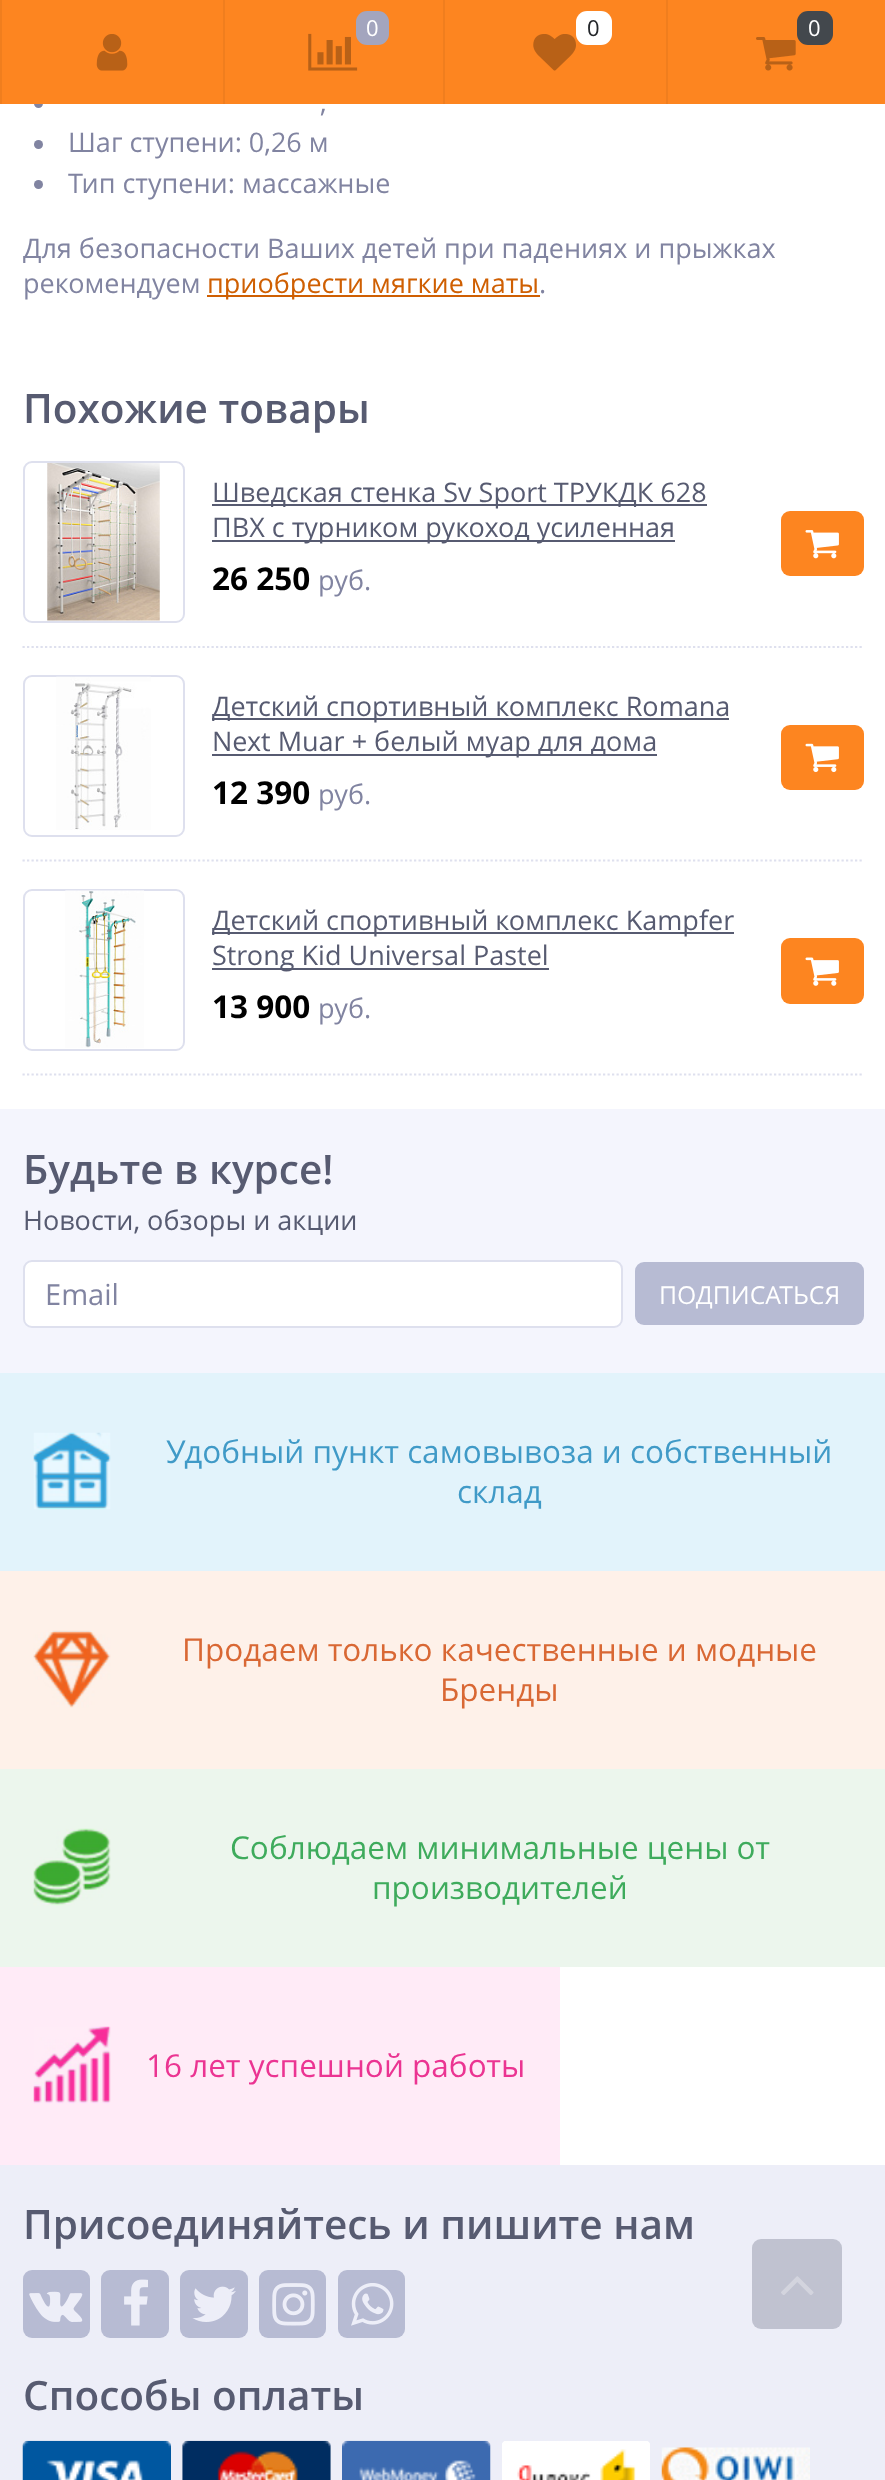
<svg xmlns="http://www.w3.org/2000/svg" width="885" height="2480">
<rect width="100%" height="100%" fill="#edeef8"/>
<rect y="104" width="885" height="1005" fill="#fff"/>
<circle cx="38.5" cy="103.5" r="4.5" fill="#8184a1"/>
<rect x="2" width="883" height="104" fill="#fd8520"/>
<rect width="2" height="104" fill="#f07e1e"/>
<rect x="223" width="2" height="104" fill="#f07e1e"/>
<image x="96" y="34" width="32" height="37" href="media/1.png"/>
<rect x="443" width="2" height="104" fill="#f07e1e"/>
<image x="308" y="33" width="50" height="38" href="media/2.png"/>
<rect x="356" y="11" width="33" height="34" rx="11" fill="#a3a5be"/>
<text x="366" y="36" style="font-family:Open Sans;font-size:22px;fill:#fff">0</text>
<rect x="666" width="2" height="104" fill="#f07e1e"/>
<rect x="576" y="11" width="36" height="34" rx="11" fill="#fff"/>
<text x="587" y="36" style="font-family:Open Sans;font-size:22px;fill:#23262a">0</text>
<image x="533" y="34" width="43" height="37" href="media/3.png"/>
<rect x="797" y="11" width="36" height="34" rx="11" fill="#43484d"/>
<text x="808" y="36" style="font-family:Open Sans;font-size:22px;fill:#fff">0</text>
<image x="756" y="37" width="40" height="34" href="media/4.png"/>
<text x="23" y="2239" style="font-family:Open Sans;font-size:40.5px;font-weight:600;fill:#575b71">Присоединяйтесь и пишите нам</text>
<rect x="23" y="2270" width="67" height="68" rx="9" fill="#b7bbd3"/>
<image x="29" y="2291" width="54" height="31" href="media/5.png"/>
<rect x="101" y="2270" width="68" height="68" rx="9" fill="#b7bbd3"/>
<image x="124" y="2279" width="24" height="47" href="media/6.png"/>
<rect x="180" y="2270" width="68" height="68" rx="9" fill="#b7bbd3"/>
<image x="192" y="2286" width="44" height="36" href="media/7.png"/>
<rect x="259" y="2270" width="67" height="68" rx="9" fill="#b7bbd3"/>
<image x="272" y="2283" width="43" height="43" href="media/8.png"/>
<rect x="338" y="2270" width="67" height="68" rx="9" fill="#b7bbd3"/>
<image x="351" y="2283" width="43" height="43" href="media/9.png"/>
<text x="23" y="2410" style="font-family:Open Sans;font-size:40.5px;font-weight:600;fill:#575b71">Способы оплаты</text>
<image x="22" y="2440" width="149" height="40" href="media/10.png"/>
<image x="182" y="2440" width="149" height="40" href="media/11.png"/>
<image x="342" y="2440" width="149" height="40" href="media/12.png"/>
<image x="502" y="2441" width="148" height="39" href="media/13.png"/>
<image x="661" y="2447" width="149" height="33" href="media/14.png"/>
<text x="320" y="112" style="font-family:Open Sans;font-size:27px;fill:#8184a1">,</text>
<circle cx="38.5" cy="144.5" r="4.5" fill="#8184a1"/>
<text x="68" y="152" style="font-family:Open Sans;font-size:27px;fill:#8184a1">Шаг ступени: 0,26 м</text>
<circle cx="38.5" cy="184.5" r="4.5" fill="#8184a1"/>
<text x="68" y="193" style="font-family:Open Sans;font-size:27px;fill:#8184a1">Тип ступени: массажные</text>
<text x="23" y="258" style="font-family:Open Sans;font-size:27px;fill:#8184a1">Для безопасности Ваших детей при падениях и прыжках</text>
<text x="23" y="293" style="font-family:Open Sans;font-size:27px;fill:#8184a1">рекомендуем</text>
<rect x="207" y="295" width="333" height="2" fill="#cf5f02"/>
<text x="207" y="293" style="font-family:Open Sans;font-size:27px;fill:#cf5f02">приобрести мягкие маты</text>
<text x="539" y="293" style="font-family:Open Sans;font-size:27px;fill:#8184a1">.</text>
<text x="23" y="423" style="font-family:Open Sans;font-size:40.5px;font-weight:600;fill:#575b71">Похожие товары</text>
<path d="M22.5 647h841.5" fill="none" stroke="#dee0ee" stroke-width="2.2" stroke-dasharray="2.25 2.25"/>
<rect x="24" y="462" width="160" height="160" rx="8" fill="none" stroke="#dee0ee" stroke-width="2"/>
<image x="47" y="463" width="113" height="158" href="media/15.png"/>
<rect x="212" y="504" width="495" height="2" fill="#575b71"/>
<text x="212" y="502" style="font-family:Open Sans;font-size:27px;fill:#575b71">Шведская стенка Sv Sport ТРУКДК 628</text>
<rect x="212" y="540" width="463" height="2" fill="#575b71"/>
<text x="212" y="537" style="font-family:Open Sans;font-size:27px;fill:#575b71">ПВХ с турником рукоход усиленная</text>
<rect x="781" y="511" width="83" height="65" rx="9" fill="#fd8520"/>
<image x="805" y="530" width="34" height="29" href="media/16.png"/>
<text x="212" y="590" style="font-family:Open Sans;font-size:31.5px;font-weight:bold;fill:#000">26 250</text>
<text x="318" y="590" style="font-family:Open Sans;font-size:27px;fill:#8184a1">руб.</text>
<path d="M22.5 860.5h841.5" fill="none" stroke="#dee0ee" stroke-width="2.2" stroke-dasharray="2.25 2.25"/>
<rect x="24" y="676" width="160" height="160" rx="8" fill="none" stroke="#dee0ee" stroke-width="2"/>
<image x="56" y="676" width="95" height="154" href="media/17.png"/>
<rect x="212" y="718" width="517" height="2" fill="#575b71"/>
<text x="212" y="716" style="font-family:Open Sans;font-size:27px;fill:#575b71">Детский спортивный комплекс Romana</text>
<rect x="212" y="754" width="445" height="2" fill="#575b71"/>
<text x="212" y="751" style="font-family:Open Sans;font-size:27px;fill:#575b71">Next Muar + белый муар для дома</text>
<rect x="781" y="725" width="83" height="65" rx="9" fill="#fd8520"/>
<image x="805" y="743" width="34" height="30" href="media/18.png"/>
<text x="212" y="804" style="font-family:Open Sans;font-size:31.5px;font-weight:bold;fill:#000">12 390</text>
<text x="318" y="804" style="font-family:Open Sans;font-size:27px;fill:#8184a1">руб.</text>
<path d="M22.5 1074.5h841.5" fill="none" stroke="#dee0ee" stroke-width="2.2" stroke-dasharray="2.25 2.25"/>
<rect x="24" y="890" width="160" height="160" rx="8" fill="none" stroke="#dee0ee" stroke-width="2"/>
<image x="65" y="890" width="79" height="158" href="media/19.png"/>
<rect x="212" y="932" width="522" height="2" fill="#575b71"/>
<text x="212" y="930" style="font-family:Open Sans;font-size:27px;fill:#575b71">Детский спортивный комплекс Kampfer</text>
<rect x="212" y="968" width="337" height="2" fill="#575b71"/>
<text x="212" y="965" style="font-family:Open Sans;font-size:27px;fill:#575b71">Strong Kid Universal Pastel</text>
<rect x="781" y="938" width="83" height="66" rx="9" fill="#fd8520"/>
<image x="805" y="957" width="34" height="29" href="media/20.png"/>
<text x="212" y="1018" style="font-family:Open Sans;font-size:31.5px;font-weight:bold;fill:#000">13 900</text>
<text x="318" y="1018" style="font-family:Open Sans;font-size:27px;fill:#8184a1">руб.</text>
<rect y="1109" width="885" height="264" fill="#f4f5fd"/>
<text x="23" y="1184" style="font-family:Open Sans;font-size:40.5px;font-weight:600;fill:#575b71">Будьте в курсе!</text>
<text x="23" y="1230" style="font-family:Open Sans;font-size:27px;fill:#575b71">Новости, обзоры и акции</text>
<rect x="24" y="1261" width="598" height="66" rx="8" fill="#fff" stroke="#dee0ee" stroke-width="2"/>
<text x="45" y="1305" style="font-family:Open Sans;font-size:29px;fill:#8184a1">Email</text>
<rect x="635" y="1262" width="229" height="63" rx="9" fill="#b7bbd3"/>
<text x="659" y="1304" style="font-family:Open Sans;font-size:24.75px;fill:#fff">ПОДПИСАТЬСЯ</text>
<rect x="560" y="1967" width="325" height="198" fill="#fff"/>
<rect y="1373" width="885" height="198" fill="#e2f3fb"/>
<image x="33" y="1432" width="78" height="78" href="media/21.png"/>
<text x="166" y="1463" style="font-family:Open Sans;font-size:31.5px;fill:#409ac7">Удобный пункт самовывоза и собственный</text>
<text x="457" y="1503" style="font-family:Open Sans;font-size:31.5px;fill:#409ac7">склад</text>
<rect y="1571" width="885" height="198" fill="#fef1e9"/>
<image x="33" y="1630" width="78" height="78" href="media/22.png"/>
<text x="182" y="1661" style="font-family:Open Sans;font-size:31.5px;fill:#d96834">Продаем только качественные и модные</text>
<text x="440" y="1701" style="font-family:Open Sans;font-size:31.5px;fill:#d96834">Бренды</text>
<rect y="1769" width="885" height="198" fill="#ecf6ed"/>
<image x="33" y="1828" width="78" height="78" href="media/23.png"/>
<text x="230" y="1859" style="font-family:Open Sans;font-size:31.5px;fill:#3eab5c">Соблюдаем минимальные цены от</text>
<text x="372" y="1899" style="font-family:Open Sans;font-size:31.5px;fill:#3eab5c">производителей</text>
<rect y="1967" width="560" height="198" fill="#ffebf7"/>
<image x="33" y="2026" width="78" height="78" href="media/24.png"/>
<text x="146" y="2077" style="font-family:Open Sans;font-size:31.5px;fill:#eb3492">16 лет успешной работы</text>
<rect x="752" y="2239" width="90" height="90" rx="9" fill="#c0c2d0"/>
<image x="781" y="2276" width="33" height="19" href="media/25.png"/>
</svg>
